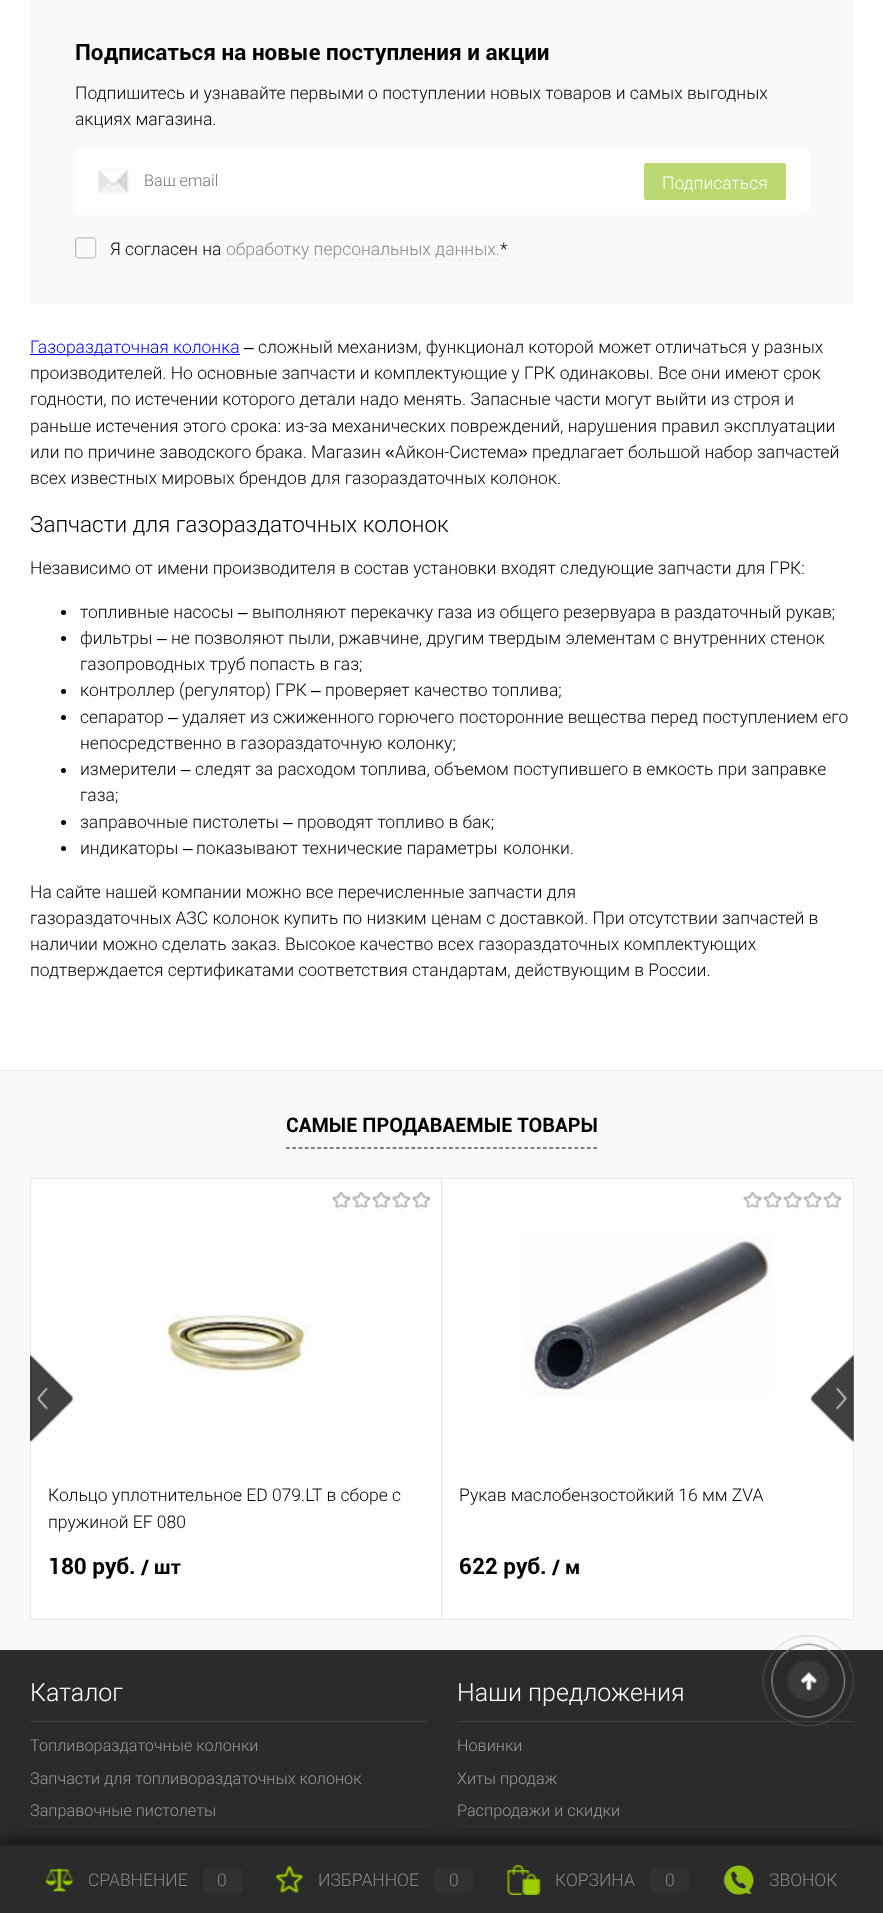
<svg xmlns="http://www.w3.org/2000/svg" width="883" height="1913">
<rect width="100%" height="100%" fill="#fff"/>
<rect x="30" width="824" height="304" fill="#f9f9f9"/>
<text x="75" y="60" style="font-family:Roboto;font-size:22.5px;font-weight:bold;fill:#000">Подписаться на новые поступления и акции</text>
<text x="75" y="99" style="font-family:Roboto;font-size:17.5px;font-weight:300;fill:#000">Подпишитесь и узнавайте первыми о поступлении новых товаров и самых выгодных</text>
<text x="75" y="125" style="font-family:Roboto;font-size:17.5px;font-weight:300;fill:#000">акциях магазина.</text>
<rect x="75" y="148" width="734" height="67" rx="5" fill="#fff"/>
<image x="97" y="168" width="32" height="26" href="media/1.png"/>
<text x="144" y="186" style="font-family:Roboto;font-size:16.25px;font-weight:300;fill:#757575">Ваш email</text>
<rect x="644" y="163" width="142" height="37" rx="2.5" fill="#bcd870"/>
<text x="662" y="189" style="font-family:Roboto;font-size:17.5px;font-weight:300;fill:#fff">Подписаться</text>
<image x="75" y="237" width="22" height="22" href="media/2.png"/>
<text x="110" y="255" style="font-family:Roboto;font-size:17.5px;font-weight:300;fill:#000">Я согласен на</text>
<path d="M226 259.5h274" fill="none" stroke="#e7e8ea" stroke-width="1.2" stroke-dasharray="3.75 2.52"/>
<text x="226" y="255" style="font-family:Roboto;font-size:17.5px;font-weight:300;fill:#888">обработку персональных данных.</text>
<text x="500" y="255" style="font-family:Roboto;font-size:17.5px;font-weight:300;fill:#000">*</text>
<rect x="30" y="354" width="210" height="1" fill="#00e"/>
<text x="30" y="353" style="font-family:Roboto;font-size:17.5px;font-weight:300;fill:#00e">Газораздаточная колонка</text>
<text x="244" y="353" style="font-family:Liberation Sans;font-size:17.5px;fill:#000">–</text>
<text x="258" y="353" style="font-family:Roboto;font-size:17.5px;font-weight:300;fill:#000">сложный механизм, функционал которой может отличаться у разных</text>
<text x="30" y="379" style="font-family:Roboto;font-size:17.5px;font-weight:300;fill:#000">производителей. Но основные запчасти и комплектующие у ГРК одинаковы. Все они имеют срок</text>
<text x="30" y="405" style="font-family:Roboto;font-size:17.5px;font-weight:300;fill:#000">годности, по истечении которого детали надо менять. Запасные части могут выйти из строя и</text>
<text x="30" y="432" style="font-family:Roboto;font-size:17.5px;font-weight:300;fill:#000">раньше истечения этого срока: из-за механических повреждений, нарушения правил эксплуатации</text>
<text x="30" y="458" style="font-family:Roboto;font-size:17.5px;font-weight:300;fill:#000">или по причине заводского брака. Магазин</text>
<text x="385" y="458" style="font-family:Liberation Sans;font-size:17.5px;fill:#000">«</text>
<text x="395" y="458" style="font-family:Roboto;font-size:17.5px;font-weight:300;fill:#000">Айкон-Система</text>
<text x="518" y="458" style="font-family:Liberation Sans;font-size:17.5px;fill:#000">»</text>
<text x="532" y="458" style="font-family:Roboto;font-size:17.5px;font-weight:300;fill:#000">предлагает большой набор запчастей</text>
<text x="30" y="484" style="font-family:Roboto;font-size:17.5px;font-weight:300;fill:#000">всех известных мировых брендов</text>
<text x="311" y="484" style="font-family:Roboto;font-size:17.5px;font-weight:300;fill:#000">для газораздаточных колонок.</text>
<text x="30" y="532" style="font-family:Roboto;font-size:22.5px;font-weight:300;fill:#000">Запчасти для газораздаточных колонок</text>
<text x="30" y="574" style="font-family:Roboto;font-size:17.5px;font-weight:300;fill:#000">Независимо от имени производителя в состав установки входят следующие запчасти для ГРК:</text>
<circle cx="63.5" cy="612.5" r="2.5" fill="#000"/>
<text x="80" y="618" style="font-family:Roboto;font-size:17.5px;font-weight:300;fill:#000">топливные насосы</text>
<text x="238" y="618" style="font-family:Liberation Sans;font-size:17.5px;fill:#000">–</text>
<text x="252" y="618" style="font-family:Roboto;font-size:17.5px;font-weight:300;fill:#000">выполняют перекачку газа из общего резервуара в раздаточный рукав;</text>
<circle cx="63.5" cy="638.5" r="2.5" fill="#000"/>
<text x="80" y="644" style="font-family:Roboto;font-size:17.5px;font-weight:300;fill:#000">фильтры</text>
<text x="157" y="644" style="font-family:Liberation Sans;font-size:17.5px;fill:#000">–</text>
<text x="171" y="644" style="font-family:Roboto;font-size:17.5px;font-weight:300;fill:#000">не позволяют пыли, ржавчине, другим твердым элементам с внутренних стенок</text>
<text x="80" y="670" style="font-family:Roboto;font-size:17.5px;font-weight:300;fill:#000">газопроводных труб попасть в газ;</text>
<circle cx="63.5" cy="691.5" r="2.5" fill="#000"/>
<text x="80" y="696" style="font-family:Roboto;font-size:17.5px;font-weight:300;fill:#000">контроллер (регулятор) ГРК</text>
<text x="311" y="696" style="font-family:Liberation Sans;font-size:17.5px;fill:#000">–</text>
<text x="325" y="696" style="font-family:Roboto;font-size:17.5px;font-weight:300;fill:#000">проверяет качество топлива;</text>
<circle cx="63.5" cy="717.5" r="2.5" fill="#000"/>
<text x="80" y="723" style="font-family:Roboto;font-size:17.5px;font-weight:300;fill:#000">сепаратор</text>
<text x="168" y="723" style="font-family:Liberation Sans;font-size:17.5px;fill:#000">–</text>
<text x="182" y="723" style="font-family:Roboto;font-size:17.5px;font-weight:300;fill:#000">удаляет из сжиженного</text>
<text x="378" y="723" style="font-family:Roboto;font-size:17.5px;font-weight:300;fill:#000">горючего</text>
<text x="459" y="723" style="font-family:Roboto;font-size:17.5px;font-weight:300;fill:#000">посторонние вещества перед поступлением его</text>
<text x="80" y="749" style="font-family:Roboto;font-size:17.5px;font-weight:300;fill:#000">непосредственно в газораздаточную</text>
<text x="387" y="749" style="font-family:Roboto;font-size:17.5px;font-weight:300;fill:#000">колонку;</text>
<circle cx="63.5" cy="770.5" r="2.5" fill="#000"/>
<text x="80" y="775" style="font-family:Roboto;font-size:17.5px;font-weight:300;fill:#000">измерители</text>
<text x="181" y="775" style="font-family:Liberation Sans;font-size:17.5px;fill:#000">–</text>
<text x="195" y="775" style="font-family:Roboto;font-size:17.5px;font-weight:300;fill:#000">следят за расходом топлива, объемом поступившего в емкость при заправке</text>
<text x="80" y="801" style="font-family:Roboto;font-size:17.5px;font-weight:300;fill:#000">газа;</text>
<circle cx="63.5" cy="822.5" r="2.5" fill="#000"/>
<text x="80" y="828" style="font-family:Roboto;font-size:17.5px;font-weight:300;fill:#000">заправочные пистолеты</text>
<text x="283" y="828" style="font-family:Liberation Sans;font-size:17.5px;fill:#000">–</text>
<text x="297" y="828" style="font-family:Roboto;font-size:17.5px;font-weight:300;fill:#000">проводят топливо в бак;</text>
<circle cx="63.5" cy="848.5" r="2.5" fill="#000"/>
<text x="80" y="854" style="font-family:Roboto;font-size:17.5px;font-weight:300;fill:#000">индикаторы</text>
<text x="183" y="854" style="font-family:Liberation Sans;font-size:17.5px;fill:#000">–</text>
<text x="196" y="854" style="font-family:Roboto;font-size:17.5px;font-weight:300;fill:#000">показывают технические параметры</text>
<text x="503" y="854" style="font-family:Roboto;font-size:17.5px;font-weight:300;fill:#000">колонки.</text>
<text x="30" y="898" style="font-family:Roboto;font-size:17.5px;font-weight:300;fill:#000">На сайте нашей компании можно все перечисленные запчасти для</text>
<text x="30" y="924" style="font-family:Roboto;font-size:17.5px;font-weight:300;fill:#000">газораздаточных АЗС колонок купить по низким ценам с доставкой. При отсутствии запчастей в</text>
<text x="30" y="950" style="font-family:Roboto;font-size:17.5px;font-weight:300;fill:#000">наличии можно сделать заказ. Высокое качество всех газораздаточных комплектующих</text>
<text x="30" y="976" style="font-family:Roboto;font-size:17.5px;font-weight:300;fill:#000">подтверждается сертификатами соответствия стандартам, действующим в России.</text>
<rect y="1071" width="883" height="579" fill="#f9f9f9"/>
<rect y="1070" width="883" height="1" fill="#e7e8ea"/>
<text x="286" y="1132" style="font-family:Roboto;font-size:20px;font-weight:bold;fill:#000">САМЫЕ ПРОДАВАЕМЫЕ ТОВАРЫ</text>
<path d="M286 1148h311.5" fill="none" stroke="#000" stroke-width="1.2" stroke-dasharray="3.75 2.52"/>
<rect x="853" y="1178" width="1" height="442" fill="#e7e8ea"/>
<rect x="30" y="1178" width="1" height="442" fill="#e7e8ea"/>
<rect x="31" y="1179" width="410" height="440" fill="#fff"/>
<image x="30" y="1354" width="44" height="89" href="media/3.png"/>
<rect x="443" y="1179" width="410" height="440" fill="#fff"/>
<image x="810" y="1354" width="44" height="89" href="media/4.png"/>
<rect x="31" y="1178" width="822" height="1" fill="#e7e8ea"/>
<rect x="441" y="1178" width="1" height="442" fill="#e7e8ea"/>
<rect x="31" y="1619" width="822" height="1" fill="#e7e8ea"/>
<image x="332" y="1192" width="98" height="17" href="media/5.png"/>
<image x="156" y="1314" width="155" height="61" href="media/6.png"/>
<text x="48" y="1501" style="font-family:Roboto;font-size:17.5px;font-weight:300;fill:#000">Кольцо уплотнительное ED 079.LT в сборе с</text>
<text x="48" y="1528" style="font-family:Roboto;font-size:17.5px;font-weight:300;fill:#000">пружиной EF 080</text>
<text x="48" y="1574" style="font-family:Roboto;font-size:22.5px;font-weight:bold;fill:#000">180 руб.</text>
<text x="141" y="1574" style="font-family:Roboto;font-size:20px;font-weight:bold;fill:#000">/ шт</text>
<image x="743" y="1192" width="99" height="17" href="media/7.png"/>
<image x="523" y="1234" width="250" height="162" href="media/8.png"/>
<text x="459" y="1501" style="font-family:Roboto;font-size:17.5px;font-weight:300;fill:#000">Рукав маслобензостойкий 16 мм ZVA</text>
<text x="459" y="1574" style="font-family:Roboto;font-size:22.5px;font-weight:bold;fill:#000">622 руб.</text>
<text x="552" y="1574" style="font-family:Roboto;font-size:20px;font-weight:bold;fill:#000">/ м</text>
<rect y="1650" width="883" height="193" fill="#2b2b2b"/>
<rect x="30" y="1721" width="398" height="1" fill="#3e3e3e"/>
<text x="30" y="1701" style="font-family:Roboto;font-size:25px;font-weight:300;fill:#fff">Каталог</text>
<text x="30" y="1751" style="font-family:Roboto;font-size:16.25px;font-weight:300;fill:#999">Топливораздаточные колонки</text>
<rect x="30" y="1761" width="398" height="1" fill="#313131"/>
<text x="30" y="1784" style="font-family:Roboto;font-size:16.25px;font-weight:300;fill:#999">Запчасти для топливораздаточных колонок</text>
<rect x="30" y="1794" width="398" height="1" fill="#313131"/>
<text x="30" y="1816" style="font-family:Roboto;font-size:16.25px;font-weight:300;fill:#999">Заправочные пистолеты</text>
<rect x="30" y="1826" width="398" height="1" fill="#313131"/>
<rect x="458" y="1721" width="396" height="1" fill="#3e3e3e"/>
<text x="457" y="1701" style="font-family:Roboto;font-size:25px;font-weight:300;fill:#fff">Наши предложения</text>
<text x="457" y="1751" style="font-family:Roboto;font-size:16.25px;font-weight:300;fill:#999">Новинки</text>
<rect x="458" y="1761" width="396" height="1" fill="#313131"/>
<text x="457" y="1784" style="font-family:Roboto;font-size:16.25px;font-weight:300;fill:#999">Хиты продаж</text>
<rect x="458" y="1794" width="396" height="1" fill="#313131"/>
<text x="457" y="1816" style="font-family:Roboto;font-size:16.25px;font-weight:300;fill:#999">Распродажи и скидки</text>
<rect x="458" y="1826" width="396" height="1" fill="#313131"/>
<rect x="1" y="1844" width="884" height="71" fill="#000" filter="blur(7.5px)"/>
<rect y="1846" width="883" height="67" fill="#2b2b2b"/>
<rect y="1843" width="883" height="3" fill="#202020"/>
<image x="46" y="1868" width="28" height="24" href="media/9.png"/>
<text x="88" y="1886" style="font-family:Roboto;font-size:17.5px;font-weight:300;fill:#888">СРАВНЕНИЕ</text>
<rect x="203" y="1868" width="40" height="25" rx="5" fill="#313131"/>
<text x="217" y="1886" style="font-family:Roboto;font-size:17.5px;font-weight:300;fill:#888">0</text>
<image x="276" y="1866" width="28" height="27" href="media/10.png"/>
<text x="318" y="1886" style="font-family:Roboto;font-size:17.5px;font-weight:300;fill:#888">ИЗБРАННОЕ</text>
<rect x="434" y="1868" width="40" height="25" rx="5" fill="#313131"/>
<text x="449" y="1886" style="font-family:Roboto;font-size:17.5px;font-weight:300;fill:#888">0</text>
<image x="507" y="1865" width="34" height="30" href="media/11.png"/>
<text x="555" y="1886" style="font-family:Roboto;font-size:17.5px;font-weight:300;fill:#888">КОРЗИНА</text>
<rect x="650" y="1868" width="40" height="25" rx="5" fill="#313131"/>
<text x="665" y="1886" style="font-family:Roboto;font-size:17.5px;font-weight:300;fill:#888">0</text>
<image x="723" y="1865" width="32" height="30" href="media/12.png"/>
<text x="769" y="1886" style="font-family:Roboto;font-size:17.5px;font-weight:300;fill:#888">ЗВОНОК</text>
<image x="762" y="1635" width="92" height="92" href="media/13.png"/>
</svg>
